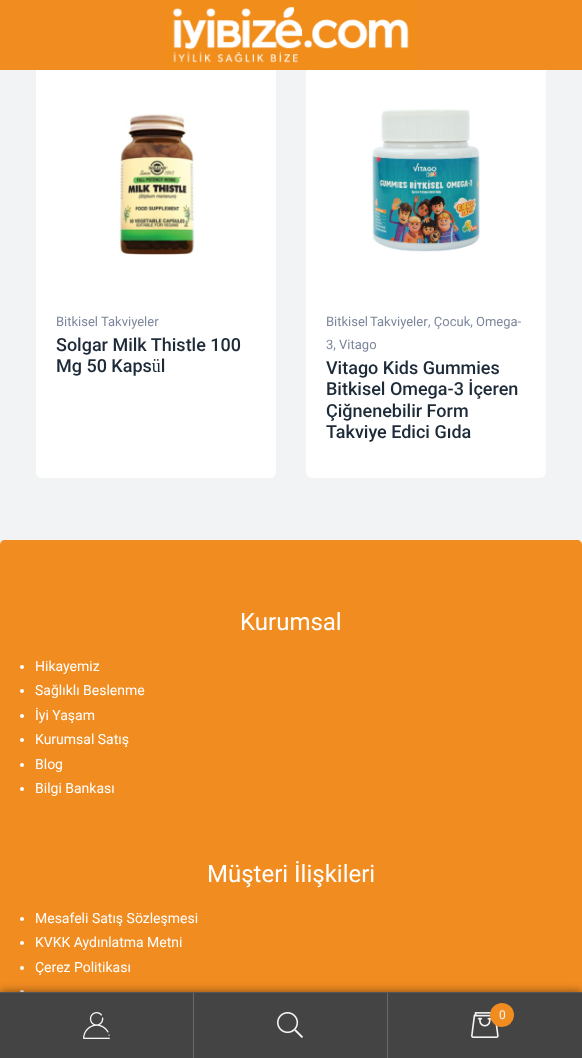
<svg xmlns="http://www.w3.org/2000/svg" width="582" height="1058">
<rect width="100%" height="100%" fill="#f2f3f5"/>
<rect x="36" y="61" width="240" height="417" rx="6" fill="#fff"/>
<rect x="306" y="61" width="240" height="417" rx="6" fill="#fff"/>
<rect width="582" height="70" fill="#f18c20"/>
<image x="165" y="0" width="252" height="70" href="media/1.png"/>
<image x="119" y="113" width="76" height="142" href="media/2.png"/>
<text x="56" y="326" style="font-family:Roboto;font-size:13px;fill:#7d879c">Bitkisel Takviyeler</text>
<text x="56" y="351" style="font-family:Roboto;font-size:18px;font-weight:500;fill:#1d2a38">Solgar Milk Thistle 100</text>
<text x="56" y="372" style="font-family:Roboto;font-size:18px;font-weight:500;fill:#1d2a38">Mg 50 Kapsül</text>
<image x="372" y="109" width="108" height="143" href="media/3.png"/>
<text x="326" y="326" word-spacing="-1" style="font-family:Roboto;font-size:13px;fill:#7d879c">Bitkisel Takviyeler</text>
<text x="428" y="326" style="font-family:Roboto;font-size:13px;fill:#7d879c">, Çocuk, Omega-</text>
<text x="326" y="349" style="font-family:Roboto;font-size:13px;fill:#7d879c">3, Vitago</text>
<text x="326" y="374" style="font-family:Roboto;font-size:18px;font-weight:500;fill:#1d2a38">Vitago Kids Gummies</text>
<text x="326" y="395" style="font-family:Roboto;font-size:18px;font-weight:500;fill:#1d2a38">Bitkisel Omega-3 İçeren</text>
<text x="326" y="417" style="font-family:Roboto;font-size:18px;font-weight:500;fill:#1d2a38">Çiğnenebilir Form</text>
<text x="326" y="438" style="font-family:Roboto;font-size:18px;font-weight:500;fill:#1d2a38">Takviye Edici Gıda</text>
<path d="M5 540h572c3 0 5 2 5 5v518h-582v-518c0-3 2-5 5-5z" fill="#f18c20"/>
<text x="240" y="630" style="font-family:Roboto;font-size:24px;fill:#fff">Kurumsal</text>
<circle cx="22" cy="667" r="2" fill="#fff"/>
<text x="35" y="671" style="font-family:Roboto;font-size:14px;fill:#fff">Hikayemiz</text>
<circle cx="22" cy="691" r="2" fill="#fff"/>
<text x="35" y="695" style="font-family:Roboto;font-size:14px;fill:#fff">Sağlıklı Beslenme</text>
<circle cx="22" cy="716" r="2" fill="#fff"/>
<text x="35" y="720" style="font-family:Roboto;font-size:14px;fill:#fff">İyi Yaşam</text>
<circle cx="22" cy="740" r="2" fill="#fff"/>
<text x="35" y="744" style="font-family:Roboto;font-size:14px;fill:#fff">Kurumsal Satış</text>
<circle cx="22" cy="765" r="2" fill="#fff"/>
<text x="35" y="769" style="font-family:Roboto;font-size:14px;fill:#fff">Blog</text>
<circle cx="22" cy="789" r="2" fill="#fff"/>
<text x="35" y="793" style="font-family:Roboto;font-size:14px;fill:#fff">Bilgi Bankası</text>
<text x="207" y="882" style="font-family:Roboto;font-size:24px;fill:#fff">Müşteri İlişkileri</text>
<circle cx="22" cy="919" r="2" fill="#fff"/>
<text x="35" y="923" style="font-family:Roboto;font-size:14px;fill:#fff">Mesafeli Satış Sözleşmesi</text>
<circle cx="22" cy="943" r="2" fill="#fff"/>
<text x="35" y="947" style="font-family:Roboto;font-size:14px;fill:#fff">KVKK Aydınlatma Metni</text>
<circle cx="22" cy="968" r="2" fill="#fff"/>
<text x="35" y="972" style="font-family:Roboto;font-size:14px;fill:#fff">Çerez Politikası</text>
<circle cx="22" cy="992" r="2" fill="#fff"/>
<rect y="992" width="582" height="66" fill="#00000080" filter="blur(5px)"/>
<rect y="992" width="582" height="1" fill="#575757"/>
<rect y="993" width="193" height="65" fill="#444"/>
<rect x="193" y="993" width="1" height="65" fill="#696969"/>
<image x="83" y="1012" width="27" height="27" href="media/4.png"/>
<rect x="194" y="993" width="193" height="65" fill="#444"/>
<rect x="387" y="993" width="1" height="65" fill="#696969"/>
<image x="277" y="1012" width="26" height="26" href="media/5.png"/>
<rect x="388" y="993" width="194" height="65" fill="#444"/>
<image x="471" y="1012" width="28" height="26" href="media/6.png"/>
<circle cx="502" cy="1015" r="12" fill="#f18c20"/>
<text x="499" y="1019" style="font-family:Roboto;font-size:12px;fill:#f3f3f3">0</text>
</svg>
